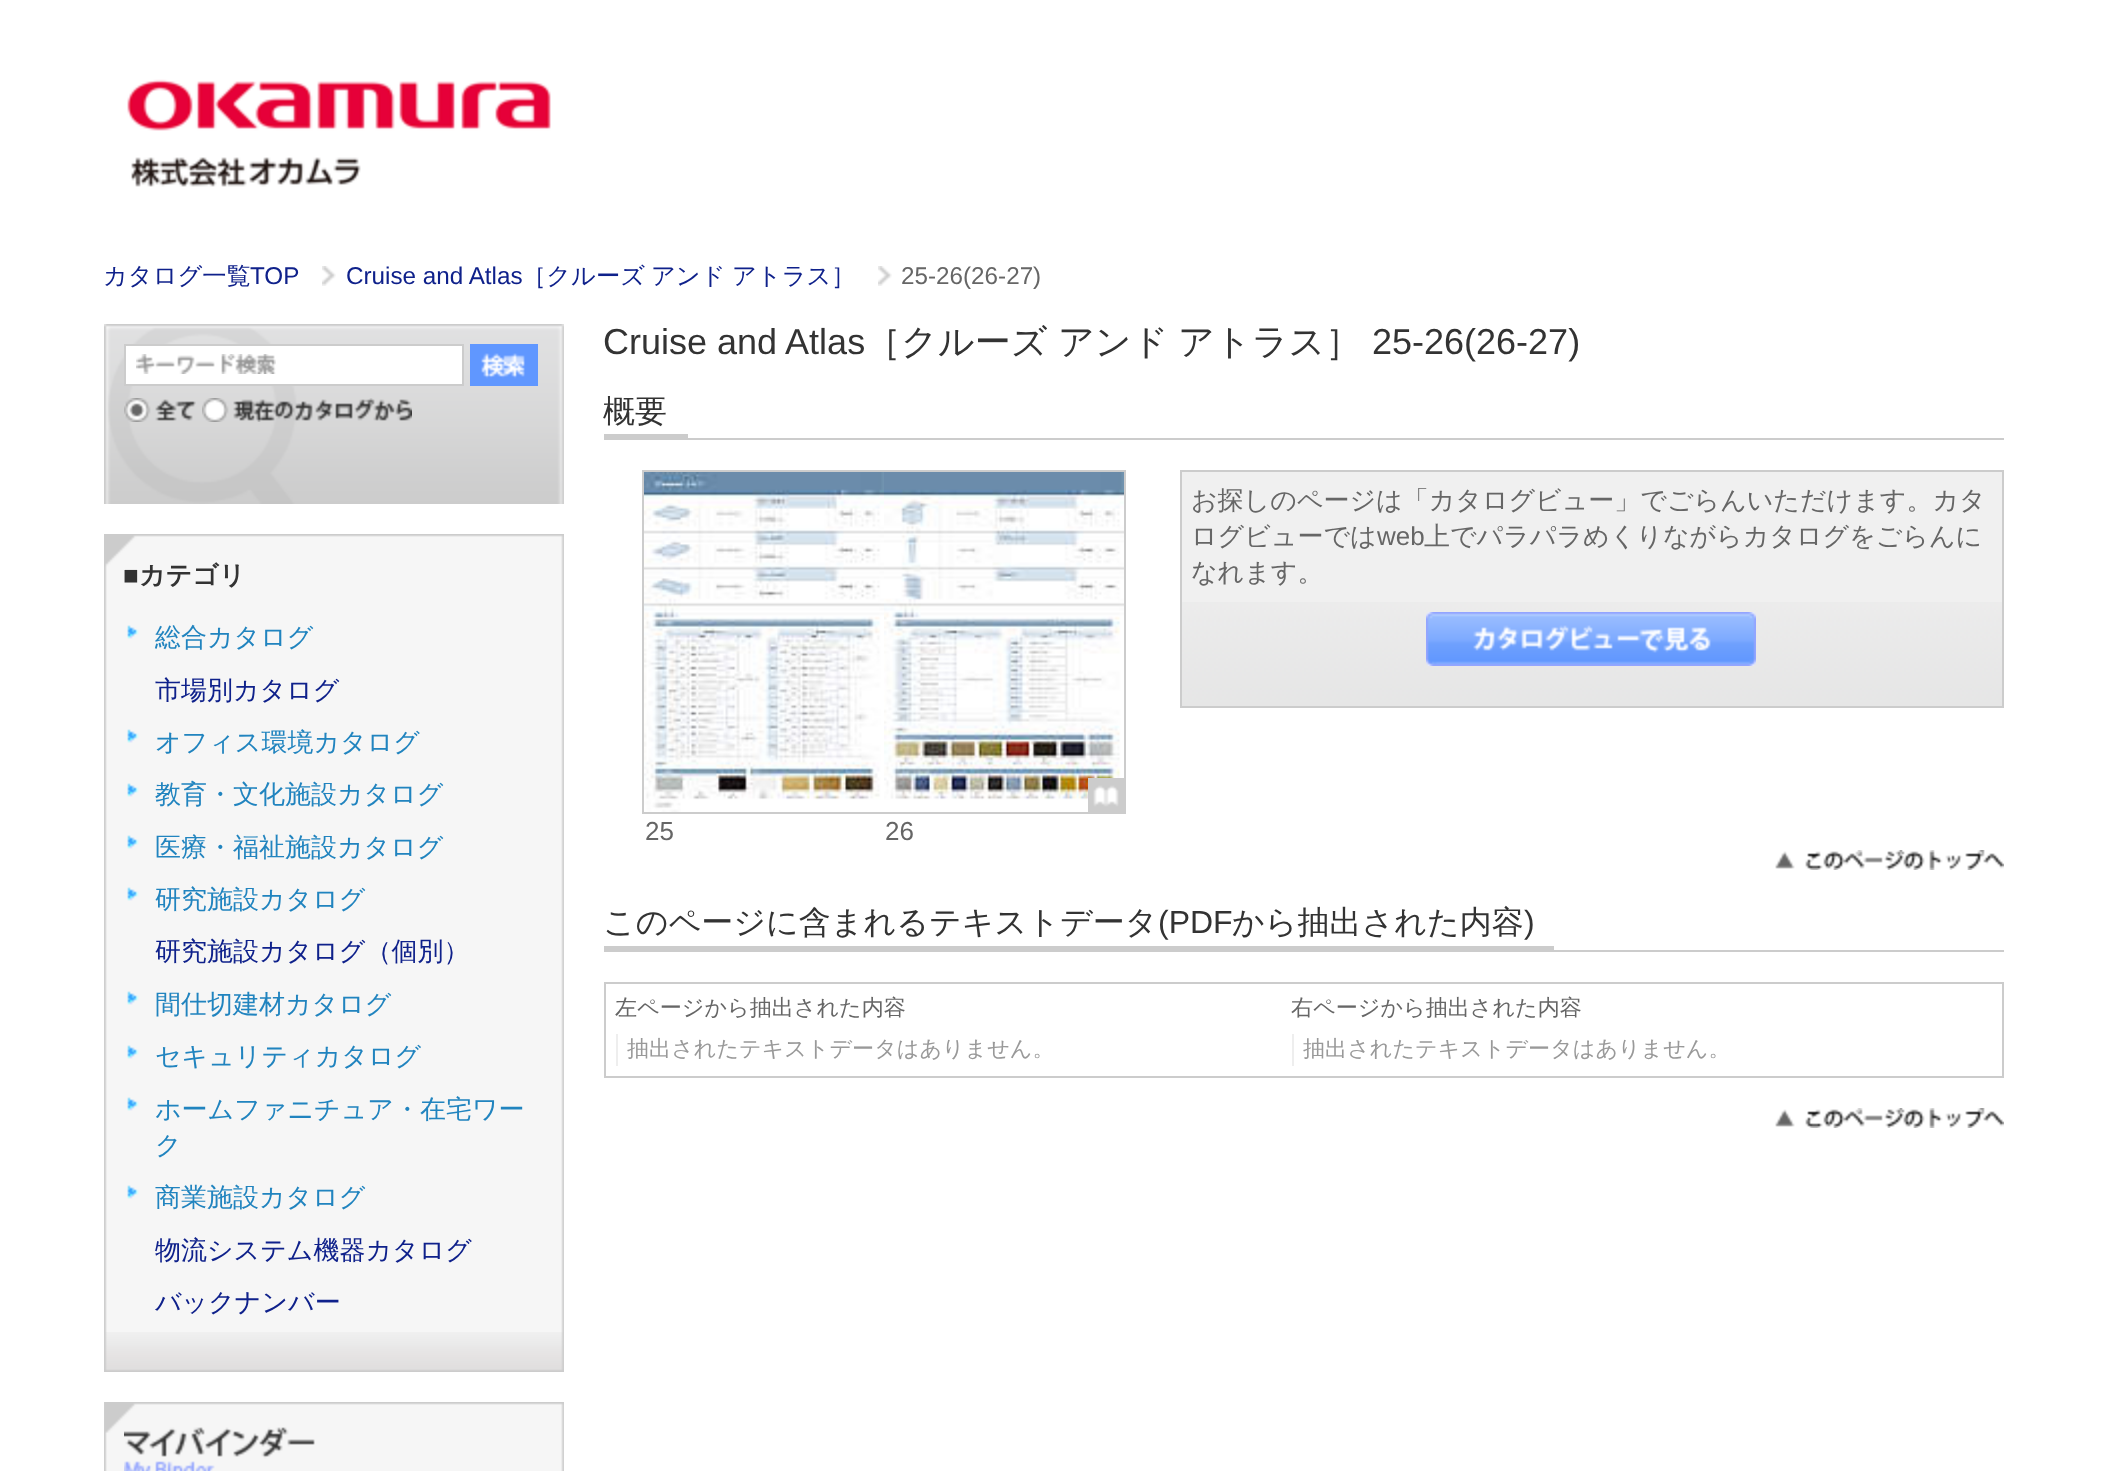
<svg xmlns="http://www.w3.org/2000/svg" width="2105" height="1471">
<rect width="100%" height="100%" fill="#fff"/>
<image x="127" y="79" width="424" height="108" href="media/1.png"/>
<text x="103" y="284" style="font-family:WenQuanYi Zen Hei;font-size:24.25px;font-weight:500;fill:#0f218b">カタログ一覧</text>
<text x="250" y="284" style="font-family:Liberation Sans;font-size:24.25px;fill:#0f218b">TOP</text>
<image x="322" y="266" width="14" height="20" href="media/2.png"/>
<text x="346" y="284" style="font-family:Liberation Sans;font-size:24.25px;fill:#0f218b">Cruise and Atlas</text>
<text x="522" y="284" style="font-family:WenQuanYi Zen Hei;font-size:24.25px;font-weight:500;fill:#0f218b">［クルーズ</text>
<text x="651" y="284" style="font-family:WenQuanYi Zen Hei;font-size:24.25px;font-weight:500;fill:#0f218b">アンド</text>
<text x="732" y="284" style="font-family:WenQuanYi Zen Hei;font-size:24.25px;font-weight:500;fill:#0f218b">アトラス］</text>
<image x="878" y="266" width="14" height="20" href="media/2.png"/>
<text x="901" y="284" style="font-family:Liberation Sans;font-size:24.25px;fill:#666">25-26(26-27)</text>
<image x="104" y="324" width="460" height="180" href="media/3.png"/>
<rect x="126" y="346" width="336" height="38" fill="#fff"/>
<image x="136" y="354" width="140" height="20" href="media/4.png"/>
<rect x="125" y="345" width="338" height="40" fill="none" stroke="#ccc" stroke-width="2"/>
<image x="470" y="344" width="68" height="42" href="media/5.png"/>
<image x="124" y="398" width="72" height="24" href="media/6.png"/>
<image x="202" y="398" width="210" height="24" href="media/7.png"/>
<image x="104" y="1332" width="460" height="40" href="media/8.png"/>
<image x="104" y="534" width="460" height="60" href="media/9.png"/>
<text x="123" y="584" style="font-family:Liberation Sans;font-size:26px;font-weight:bold;fill:#333">■</text>
<text x="139" y="584" style="font-family:WenQuanYi Zen Hei;font-size:26px;font-weight:bold;fill:#333">カテゴリ</text>
<image x="104" y="594" width="460" height="738" href="media/10.png"/>
<image x="127" y="625" width="12" height="14" href="media/11.png"/>
<text x="155" y="646" style="font-family:WenQuanYi Zen Hei;font-size:26px;font-weight:500;fill:#2184bf">総合カタログ</text>
<text x="155" y="699" style="font-family:WenQuanYi Zen Hei;font-size:26px;font-weight:500;fill:#0f218b">市場別カタログ</text>
<image x="127" y="729" width="12" height="14" href="media/11.png"/>
<text x="155" y="751" style="font-family:WenQuanYi Zen Hei;font-size:26px;font-weight:500;fill:#2184bf">オフィス環境カタログ</text>
<image x="127" y="783" width="12" height="14" href="media/11.png"/>
<text x="155" y="803" style="font-family:WenQuanYi Zen Hei;font-size:26px;font-weight:500;fill:#2184bf">教育・文化施設カタログ</text>
<image x="127" y="835" width="12" height="14" href="media/11.png"/>
<text x="155" y="856" style="font-family:WenQuanYi Zen Hei;font-size:26px;font-weight:500;fill:#2184bf">医療・福祉施設カタログ</text>
<image x="127" y="887" width="12" height="14" href="media/11.png"/>
<text x="155" y="908" style="font-family:WenQuanYi Zen Hei;font-size:26px;font-weight:500;fill:#2184bf">研究施設カタログ</text>
<text x="155" y="960" style="font-family:WenQuanYi Zen Hei;font-size:26px;font-weight:500;fill:#0f218b">研究施設カタログ（個別）</text>
<image x="127" y="991" width="12" height="14" href="media/11.png"/>
<text x="155" y="1013" style="font-family:WenQuanYi Zen Hei;font-size:26px;font-weight:500;fill:#2184bf">間仕切建材カタログ</text>
<image x="127" y="1045" width="12" height="14" href="media/11.png"/>
<text x="155" y="1065" style="font-family:WenQuanYi Zen Hei;font-size:26px;font-weight:500;fill:#2184bf">セキュリティカタログ</text>
<image x="127" y="1097" width="12" height="14" href="media/11.png"/>
<text x="155" y="1118" style="font-family:WenQuanYi Zen Hei;font-size:26px;font-weight:500;fill:#2184bf">ホームファニチュア・在宅ワー</text>
<text x="155" y="1154" style="font-family:WenQuanYi Zen Hei;font-size:26px;font-weight:500;fill:#2184bf">ク</text>
<image x="127" y="1185" width="12" height="14" href="media/11.png"/>
<text x="155" y="1206" style="font-family:WenQuanYi Zen Hei;font-size:26px;font-weight:500;fill:#2184bf">商業施設カタログ</text>
<text x="155" y="1259" style="font-family:WenQuanYi Zen Hei;font-size:26px;font-weight:500;fill:#0f218b">物流システム機器カタログ</text>
<text x="155" y="1311" style="font-family:WenQuanYi Zen Hei;font-size:26px;font-weight:500;fill:#0f218b">バックナンバー</text>
<image x="104" y="1402" width="460" height="69" href="media/12.png"/>
<image x="105" y="1402" width="459" height="31" href="media/13.png"/>
<image x="124" y="1427" width="191" height="44" href="media/14.png"/>
<text x="603" y="354" style="font-family:Liberation Sans;font-size:36px;fill:#333">Cruise and Atlas</text>
<text x="865" y="354" style="font-family:WenQuanYi Zen Hei;font-size:36px;font-weight:500;fill:#333">［クルーズ</text>
<text x="1058" y="354" style="font-family:WenQuanYi Zen Hei;font-size:36px;font-weight:500;fill:#333">アンド</text>
<text x="1178" y="354" style="font-family:WenQuanYi Zen Hei;font-size:36px;font-weight:500;fill:#333">アトラス］</text>
<text x="1372" y="354" style="font-family:Liberation Sans;font-size:36px;fill:#333">25-26(26-27)</text>
<rect x="604" y="438" width="1400" height="2" fill="#ccc"/>
<rect x="604" y="434" width="84" height="4" fill="#ccc"/>
<text x="603" y="422" style="font-family:WenQuanYi Zen Hei;font-size:32px;font-weight:500;fill:#333">概要</text>
<rect x="1182" y="472" width="820" height="130" fill="#f0f0f0"/>
<image x="1182" y="602" width="820" height="104" href="media/15.png"/>
<rect x="1181" y="471" width="822" height="236" fill="none" stroke="#ccc" stroke-width="2"/>
<text x="1191" y="509" style="font-family:WenQuanYi Zen Hei;font-size:26px;font-weight:500;fill:#666">お探しのページは「カタログビュー」でごらんいただけます。カタ</text>
<text x="1191" y="545" style="font-family:WenQuanYi Zen Hei;font-size:26px;font-weight:500;fill:#666">ログビューでは</text>
<text x="1377" y="545" style="font-family:Liberation Sans;font-size:26px;fill:#666">web</text>
<text x="1424" y="545" style="font-family:WenQuanYi Zen Hei;font-size:26px;font-weight:500;fill:#666">上でパラパラめくりながらカタログをごらんに</text>
<text x="1191" y="581" style="font-family:WenQuanYi Zen Hei;font-size:26px;font-weight:500;fill:#666">なれます。</text>
<image x="1426" y="612" width="330" height="54" href="media/16.png"/>
<rect x="643" y="471" width="482" height="342" fill="none" stroke="#ccc" stroke-width="2"/>
<image x="644" y="472" width="240" height="340" href="media/17.png"/>
<image x="884" y="472" width="240" height="340" href="media/18.png"/>
<image x="1088" y="778" width="36" height="34" href="media/19.png"/>
<text x="645" y="840" style="font-family:Liberation Sans;font-size:26px;fill:#666">25</text>
<text x="885" y="840" style="font-family:Liberation Sans;font-size:26px;fill:#666">26</text>
<image x="1775" y="850" width="229" height="20" href="media/20.png"/>
<rect x="604" y="950" width="1400" height="2" fill="#ccc"/>
<rect x="604" y="946" width="950" height="4" fill="#ccc"/>
<text x="603" y="933" style="font-family:WenQuanYi Zen Hei;font-size:32px;font-weight:500;fill:#333">このページに含まれるテキストデータ</text>
<text x="1158" y="933" style="font-family:Liberation Sans;font-size:32px;fill:#333">(PDF</text>
<text x="1232" y="933" style="font-family:WenQuanYi Zen Hei;font-size:32px;font-weight:500;fill:#333">から抽出された内容</text>
<text x="1524" y="933" style="font-family:Liberation Sans;font-size:32px;fill:#333">)</text>
<rect x="605" y="983" width="1398" height="94" fill="none" stroke="#ccc" stroke-width="2"/>
<text x="615" y="1015" style="font-family:WenQuanYi Zen Hei;font-size:22.1px;font-weight:500;fill:#666">左ページから抽出された内容</text>
<rect x="616" y="1034" width="2" height="32" fill="#eee"/>
<text x="627" y="1056" style="font-family:WenQuanYi Zen Hei;font-size:22.1px;font-weight:500;fill:#999">抽出されたテキストデータはありません。</text>
<text x="1291" y="1015" style="font-family:WenQuanYi Zen Hei;font-size:22.1px;font-weight:500;fill:#666">右ページから抽出された内容</text>
<rect x="1292" y="1034" width="2" height="32" fill="#eee"/>
<text x="1303" y="1056" style="font-family:WenQuanYi Zen Hei;font-size:22.1px;font-weight:500;fill:#999">抽出されたテキストデータはありません。</text>
<image x="1775" y="1108" width="229" height="20" href="media/20.png"/>
</svg>
